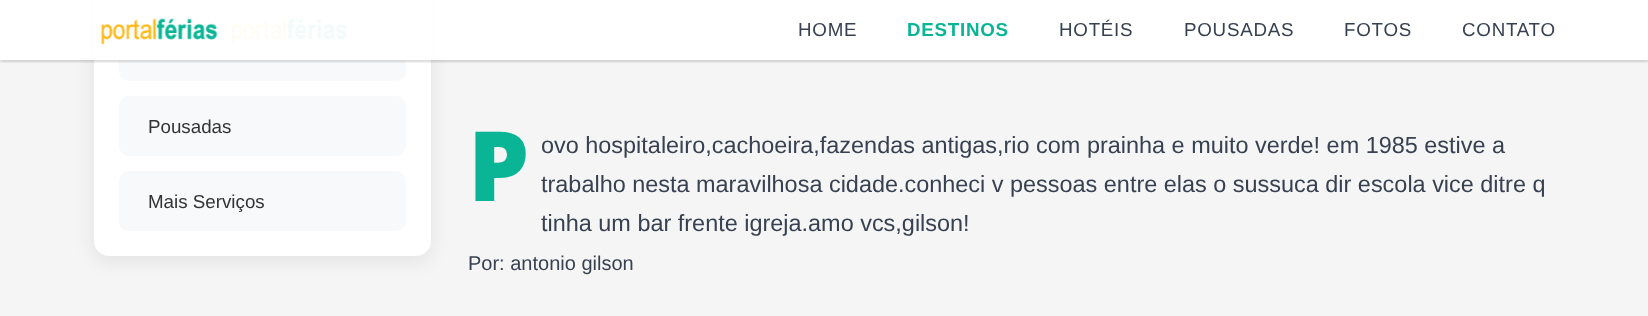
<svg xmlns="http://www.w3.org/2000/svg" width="1648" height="316">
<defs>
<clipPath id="clip1"><rect x="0" y="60" width="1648" height="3"/></clipPath>
</defs>
<rect width="100%" height="100%" fill="#f5f5f5"/>
<rect x="94" y="-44" width="337" height="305" rx="15" fill="#00000014" filter="blur(9.5px)"/>
<rect x="94" y="-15" width="337" height="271" rx="15" fill="#fff"/>
<rect x="119" y="-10" width="287" height="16" rx="10" fill="#f7f9fb"/>
<rect x="119" y="21" width="287" height="60" rx="10" fill="#f7f9fb"/>
<g clip-path="url(#clip1)">
<rect y="1" width="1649" height="60" fill="#0000001f" filter="blur(2px)"/>
</g>
<rect width="1648" height="60" fill="#fffffff2"/>
<image x="101" y="18" width="117" height="26" href="media/1.png"/>
<image x="231" y="18" width="117" height="26" href="media/2.png"/>
<g clip-path="url(#clip1)">
<rect y="1" width="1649" height="60" fill="#0000001f" filter="blur(2px)"/>
</g>
<rect x="101" y="18" width="247" height="26" fill="#fffffff2"/>
<image x="101" y="18" width="117" height="26" href="media/3.png"/>
<text x="798" y="36" style="font-family:Liberation Sans;font-size:18.75px;letter-spacing:0.75px;fill:#374151">HOME</text>
<text x="907" y="36" style="font-family:Liberation Sans;font-size:18.75px;font-weight:bold;letter-spacing:0.75px;fill:#0ab596">DESTINOS</text>
<text x="1059" y="36" style="font-family:Liberation Sans;font-size:18.75px;letter-spacing:0.75px;fill:#374151">HOTÉIS</text>
<text x="1184" y="36" style="font-family:Liberation Sans;font-size:18.75px;letter-spacing:0.75px;fill:#374151">POUSADAS</text>
<text x="1344" y="36" style="font-family:Liberation Sans;font-size:18.75px;letter-spacing:0.75px;fill:#374151">FOTOS</text>
<text x="1462" y="36" style="font-family:Liberation Sans;font-size:18.75px;letter-spacing:0.75px;fill:#374151">CONTATO</text>
<rect x="119" y="96" width="287" height="60" rx="10" fill="#f7f9fb"/>
<text x="148" y="133" style="font-family:Liberation Sans;font-size:18.75px;fill:#333">Pousadas</text>
<rect x="119" y="171" width="287" height="60" rx="10" fill="#f7f9fb"/>
<text x="148" y="208" style="font-family:Liberation Sans;font-size:18.75px;fill:#333">Mais Serviços</text>
<text x="468" y="201" style="font-family:Noto Sans;font-size:97px;font-weight:900;fill:#0ab596">P</text>
<text x="541" y="153" style="font-family:Liberation Sans;font-size:23.45px;fill:#374151">ovo hospitaleiro,cachoeira,fazendas antigas,rio com prainha e muito verde! em 1985 estive a</text>
<text x="541" y="192" style="font-family:Liberation Sans;font-size:23.45px;fill:#374151">trabalho nesta maravilhosa cidade.conheci v pessoas entre elas o sussuca dir escola vice ditre q</text>
<text x="541" y="231" style="font-family:Liberation Sans;font-size:23.45px;fill:#374151">tinha um bar frente igreja.amo vcs,gilson!</text>
<text x="468" y="270" style="font-family:Liberation Sans;font-size:20px;fill:#374151">Por: antonio gilson</text>
</svg>
